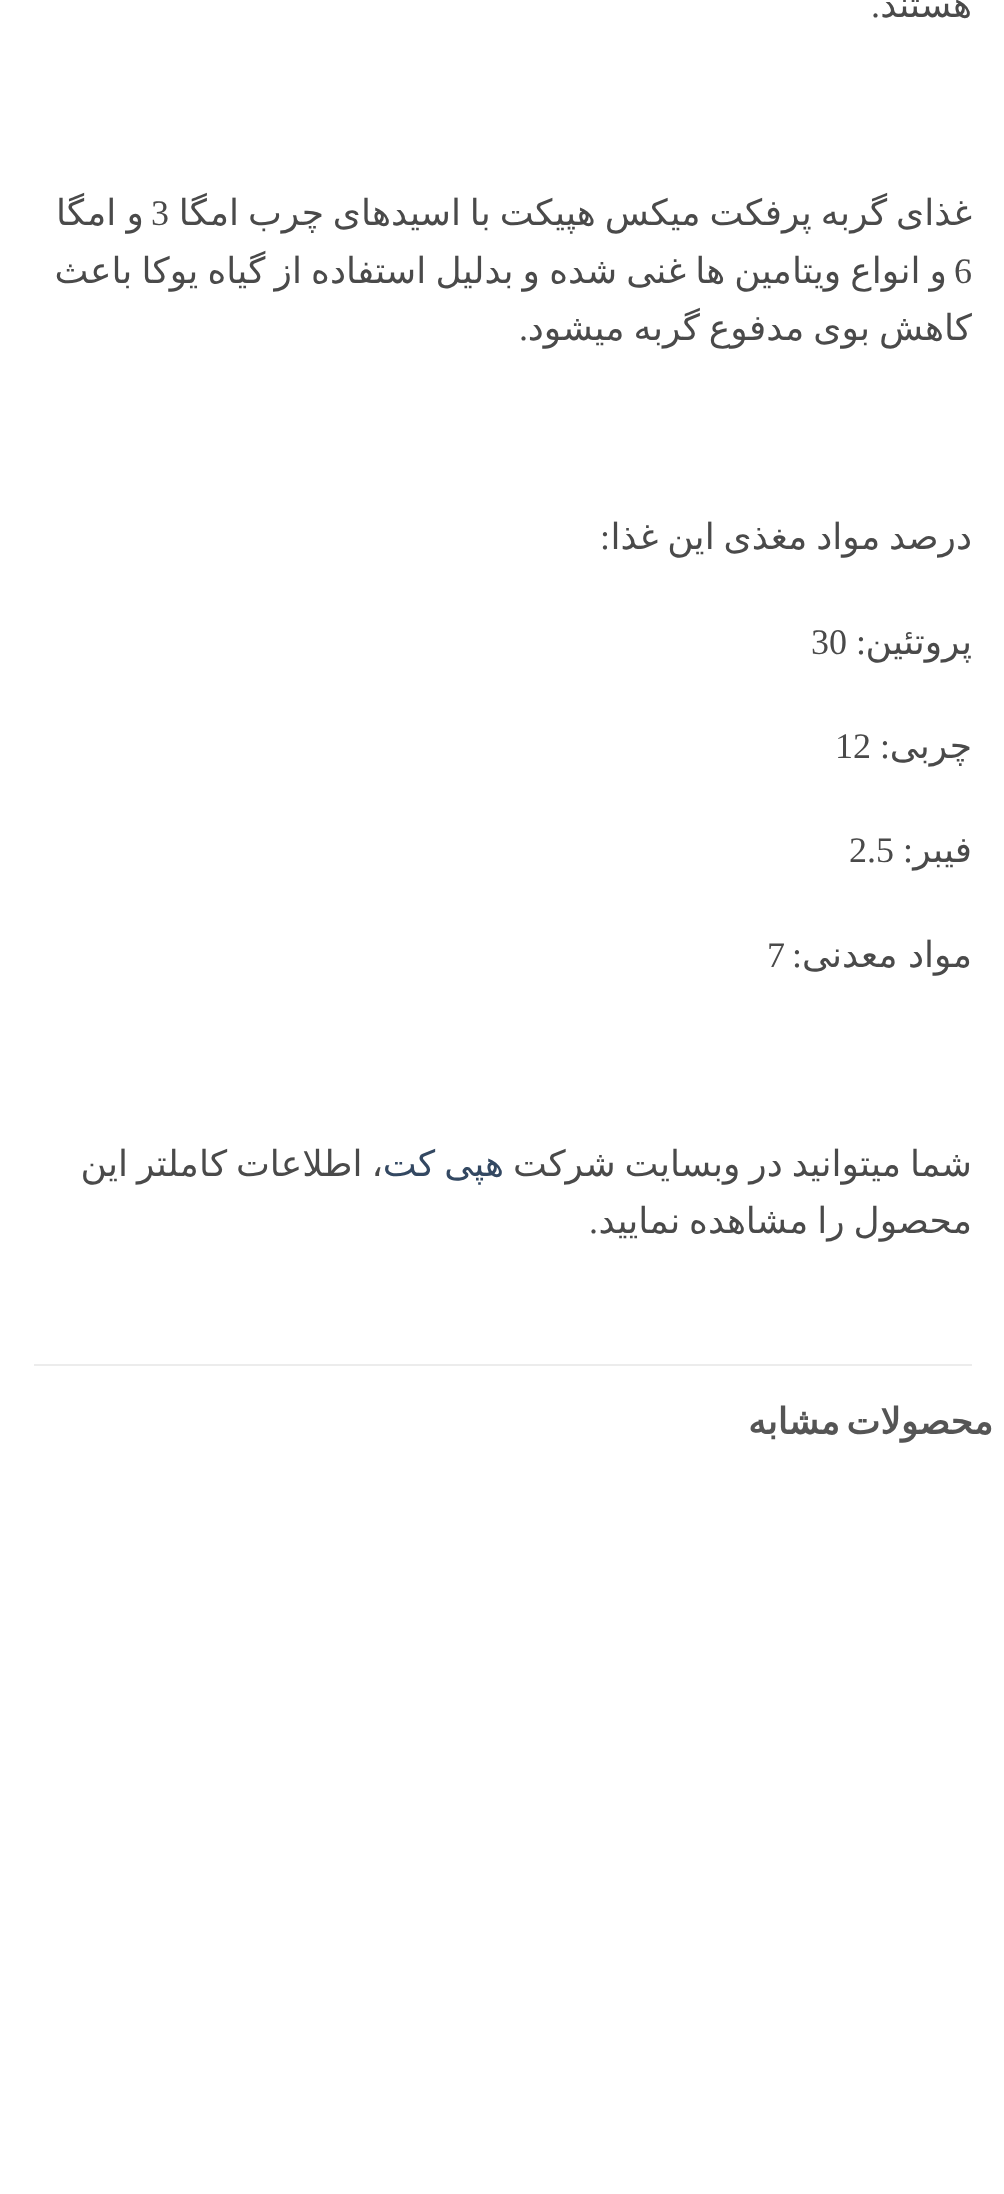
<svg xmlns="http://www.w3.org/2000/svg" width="1004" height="2194">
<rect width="100%" height="100%" fill="#fff"/>
<text x="972" y="17" style="font-family:DejaVu Sans;font-size:36px;direction:rtl;fill:#4a4a4a">هستند</text>
<text x="880" y="17" style="font-family:Liberation Serif;font-size:36px;direction:rtl;fill:#4a4a4a">.</text>
<text x="972" y="225" word-spacing="-2.5" style="font-family:DejaVu Sans;font-size:36px;direction:rtl;fill:#4a4a4a">غذای گربه پرفکت میکس هپیکت با اسیدهای چرب امگا</text>
<text x="151" y="225" style="font-family:Liberation Serif;font-size:36px;fill:#4a4a4a">3</text>
<text x="144" y="225" word-spacing="-1" style="font-family:DejaVu Sans;font-size:36px;direction:rtl;fill:#4a4a4a">و امگا</text>
<text x="954" y="283" style="font-family:Liberation Serif;font-size:36px;fill:#4a4a4a">6</text>
<text x="947" y="283" word-spacing="-2.25" style="font-family:DejaVu Sans;font-size:36px;direction:rtl;fill:#4a4a4a">و انواع ویتامین ها غنی شده و بدلیل استفاده از گیاه یوکا باعث</text>
<text x="972" y="340" word-spacing="-2.5" style="font-family:DejaVu Sans;font-size:36px;direction:rtl;fill:#4a4a4a">کاهش بوی مدفوع گربه میشود</text>
<text x="528" y="340" style="font-family:Liberation Serif;font-size:36px;direction:rtl;fill:#4a4a4a">.</text>
<text x="972" y="549" word-spacing="-2.5" style="font-family:DejaVu Sans;font-size:36px;direction:rtl;fill:#4a4a4a">درصد مواد مغذی این غذا</text>
<text x="610" y="549" style="font-family:Liberation Serif;font-size:36px;direction:rtl;fill:#4a4a4a">:</text>
<text x="972" y="654" style="font-family:DejaVu Sans;font-size:36px;direction:rtl;fill:#4a4a4a">پروتئین</text>
<text x="866" y="654" style="font-family:Liberation Serif;font-size:36px;direction:rtl;fill:#4a4a4a">:</text>
<text x="811" y="654" style="font-family:Liberation Serif;font-size:36px;fill:#4a4a4a">30</text>
<text x="972" y="758" style="font-family:DejaVu Sans;font-size:36px;direction:rtl;fill:#4a4a4a">چربی</text>
<text x="890" y="758" style="font-family:Liberation Serif;font-size:36px;direction:rtl;fill:#4a4a4a">:</text>
<text x="835" y="758" style="font-family:Liberation Serif;font-size:36px;fill:#4a4a4a">12</text>
<text x="972" y="862" style="font-family:DejaVu Sans;font-size:36px;direction:rtl;fill:#4a4a4a">فیبر</text>
<text x="913" y="862" style="font-family:Liberation Serif;font-size:36px;direction:rtl;fill:#4a4a4a">:</text>
<text x="849" y="862" style="font-family:Liberation Serif;font-size:36px;fill:#4a4a4a">2.5</text>
<text x="972" y="967" word-spacing="-1" style="font-family:DejaVu Sans;font-size:36px;direction:rtl;fill:#4a4a4a">مواد معدنی</text>
<text x="802" y="967" style="font-family:Liberation Serif;font-size:36px;direction:rtl;fill:#4a4a4a">:</text>
<text x="767" y="967" style="font-family:Liberation Serif;font-size:36px;fill:#4a4a4a">7</text>
<text x="972" y="1176" word-spacing="-2.5" style="font-family:DejaVu Sans;font-size:36px;direction:rtl;fill:#4a4a4a">شما میتوانید در وبسایت شرکت</text>
<text x="504" y="1176" word-spacing="-2.5" style="font-family:DejaVu Sans;font-size:36px;direction:rtl;fill:#334862">هپی کت</text>
<text x="383" y="1176" word-spacing="-2.5" style="font-family:DejaVu Sans;font-size:36px;direction:rtl;fill:#4a4a4a">، اطلاعات کاملتر این</text>
<text x="972" y="1233" word-spacing="-2.5" style="font-family:DejaVu Sans;font-size:36px;direction:rtl;fill:#4a4a4a">محصول را مشاهده نمایید</text>
<text x="598" y="1233" style="font-family:Liberation Serif;font-size:36px;direction:rtl;fill:#4a4a4a">.</text>
<rect x="34" y="1364" width="938" height="2" fill="#ececec"/>
<text x="993" y="1434" word-spacing="-5" style="font-family:DejaVu Sans;font-size:36px;font-weight:bold;letter-spacing:1.75px;direction:rtl;fill:#555">محصولات مشابه</text>
</svg>
